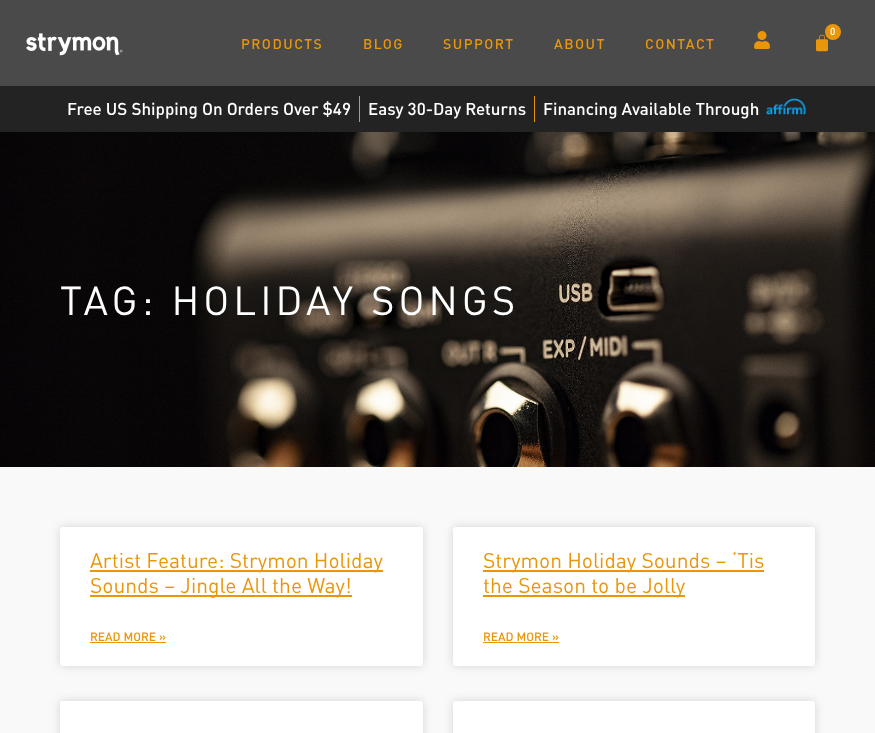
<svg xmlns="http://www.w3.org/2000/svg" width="875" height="733">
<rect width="100%" height="100%" fill="#4a4a4a"/>
<image x="26" y="33" width="97" height="23" href="media/1.png"/>
<text x="241" y="49" style="font-family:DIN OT;font-size:14px;font-weight:500;letter-spacing:1.5px;fill:#ea960a">PRODUCTS</text>
<text x="363" y="49" style="font-family:DIN OT;font-size:14px;font-weight:500;letter-spacing:1.5px;fill:#ea960a">BLOG</text>
<text x="443" y="49" style="font-family:DIN OT;font-size:14px;font-weight:500;letter-spacing:1.5px;fill:#ea960a">SUPPORT</text>
<text x="554" y="49" style="font-family:DIN OT;font-size:14px;font-weight:500;letter-spacing:1.5px;fill:#ea960a">ABOUT</text>
<text x="645" y="49" style="font-family:DIN OT;font-size:14px;font-weight:500;letter-spacing:1.5px;fill:#ea960a">CONTACT</text>
<image x="754" y="31" width="16" height="18" href="media/2.png"/>
<image x="816" y="34" width="12" height="18" href="media/3.png"/>
<circle cx="833" cy="32" r="8" fill="#ea960a"/>
<text x="830" y="35" style="font-family:DIN OT;font-size:10px;font-weight:500;fill:#fff">0</text>
<rect y="86" width="875" height="46" fill="#232323"/>
<text x="67" y="115" style="font-family:DIN OT;font-size:17px;font-weight:500;fill:#fff">Free US Shipping On Orders Over $49</text>
<rect x="359" y="96" width="1" height="26" fill="#ea960a"/>
<text x="368" y="115" style="font-family:DIN OT;font-size:17px;font-weight:500;fill:#fff">Easy 30-Day Returns</text>
<rect x="534" y="96" width="1" height="26" fill="#ea960a"/>
<text x="543" y="115" style="font-family:DIN OT;font-size:17px;font-weight:500;fill:#fff">Financing Available Through</text>
<image x="765" y="98" width="42" height="17" href="media/4.png"/>
<image x="0" y="132" width="875" height="335" href="media/5.png"/>
<text x="60" y="315" style="font-family:DIN OT;font-size:40px;letter-spacing:4px;fill:#fff">TAG: HOLIDAY SONGS</text>
<rect y="467" width="875" height="266" fill="#f9f9f9"/>
<rect x="60" y="527" width="363" height="139" rx="3" fill="#00000026" filter="blur(5px)"/>
<rect x="60" y="527" width="363" height="139" rx="3" fill="#fff"/>
<rect x="90" y="570" width="293" height="2" fill="#ea960a"/>
<text x="90" y="568" style="font-family:DIN OT;font-size:21px;fill:#ea960a">Artist Feature: Strymon Holiday</text>
<rect x="90" y="595" width="262" height="2" fill="#ea960a"/>
<text x="90" y="593" style="font-family:DIN OT;font-size:21px;fill:#ea960a">Sounds – Jingle All the Way!</text>
<text x="90" y="641" style="font-family:DIN OT;font-size:12px;font-weight:500;fill:#ea960a">READ MORE »</text>
<rect x="90" y="642" width="76" height="1" fill="#ea960a"/>
<rect x="453" y="527" width="362" height="139" rx="3" fill="#00000026" filter="blur(5px)"/>
<rect x="453" y="527" width="362" height="139" rx="3" fill="#fff"/>
<rect x="483" y="570" width="281" height="2" fill="#ea960a"/>
<text x="483" y="568" style="font-family:DIN OT;font-size:21px;fill:#ea960a">Strymon Holiday Sounds – ‘Tis</text>
<rect x="483" y="595" width="202" height="2" fill="#ea960a"/>
<text x="483" y="593" style="font-family:DIN OT;font-size:21px;fill:#ea960a">the Season to be Jolly</text>
<text x="483" y="641" style="font-family:DIN OT;font-size:12px;font-weight:500;fill:#ea960a">READ MORE »</text>
<rect x="483" y="642" width="76" height="1" fill="#ea960a"/>
<rect x="60" y="701" width="363" height="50" rx="3" fill="#00000026" filter="blur(5px)"/>
<rect x="60" y="701" width="363" height="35" rx="3" fill="#fff"/>
<rect x="453" y="701" width="362" height="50" rx="3" fill="#00000026" filter="blur(5px)"/>
<rect x="453" y="701" width="362" height="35" rx="3" fill="#fff"/>
</svg>
